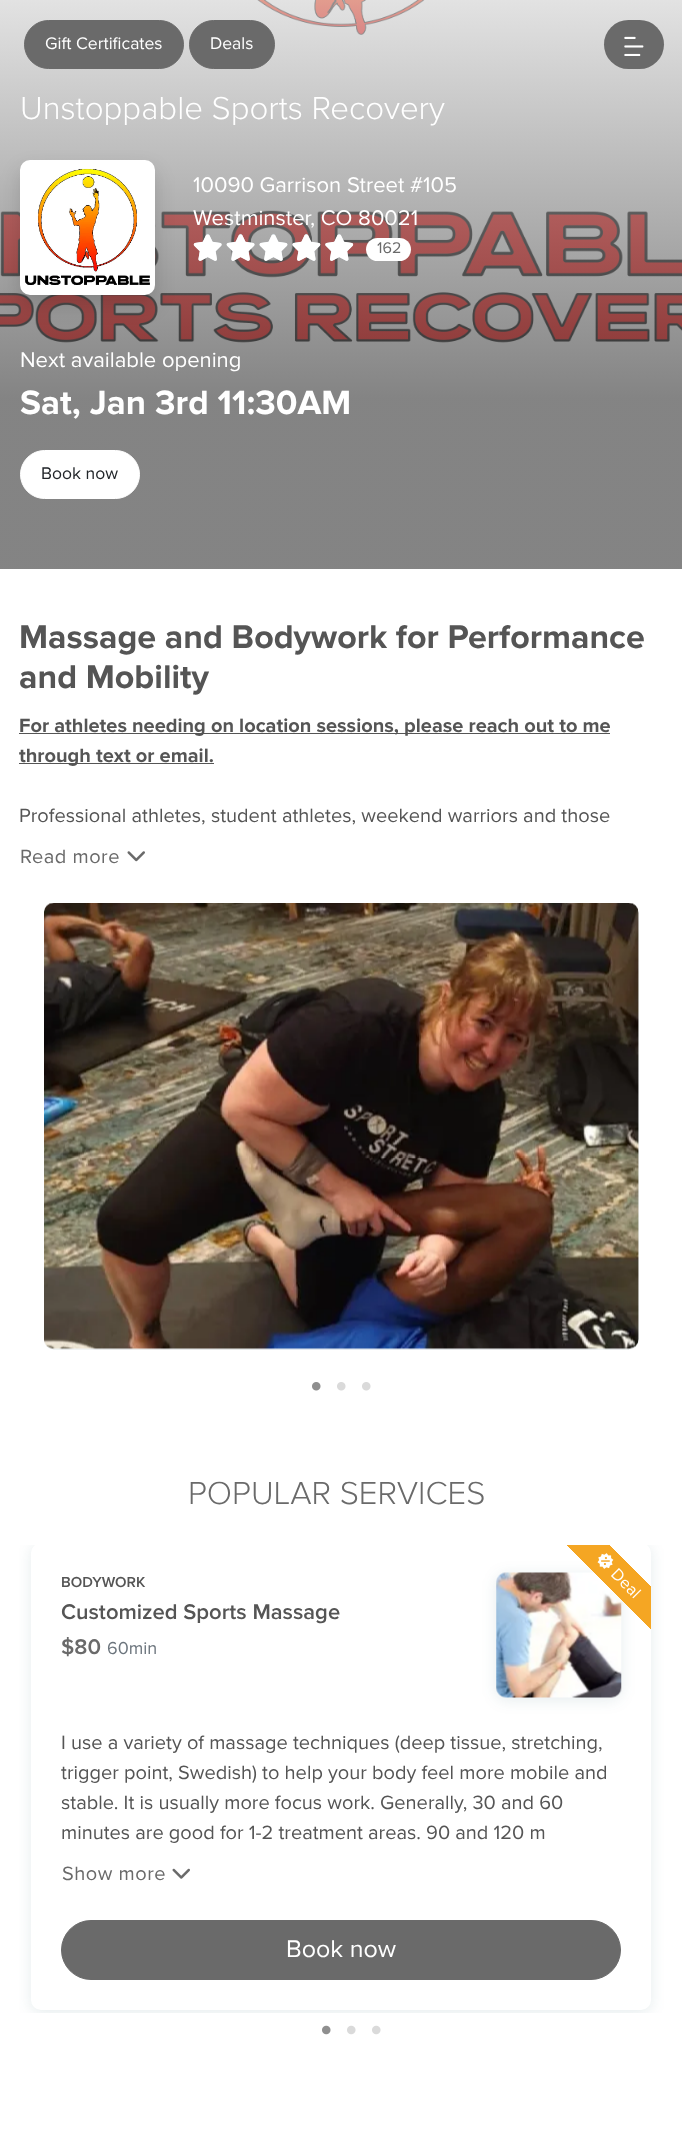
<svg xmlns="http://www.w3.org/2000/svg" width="682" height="2141">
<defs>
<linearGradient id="g1" gradientUnits="userSpaceOnUse" x1="341" y1="569" x2="341" y2="0"><stop offset="0.3" stop-color="#474747" stop-opacity="0.67"/><stop offset="1" stop-color="#d4d4d4" stop-opacity="0.67"/></linearGradient>
<clipPath id="clip1"><rect x="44" y="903" width="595" height="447" rx="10"/></clipPath>
<clipPath id="clip2"><rect x="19" y="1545" width="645" height="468"/></clipPath>
<clipPath id="clip3"><rect x="19" y="1545" width="645" height="468"/></clipPath>
<linearGradient id="g2" gradientUnits="userSpaceOnUse" x1="564" y1="1630" x2="651" y2="1543"><stop offset="0.5" stop-color="#f5a623" stop-opacity="0"/><stop offset="0.5" stop-color="#f5a623"/><stop offset="0.75" stop-color="#f5a623"/><stop offset="0.75" stop-color="#f5a623" stop-opacity="0"/></linearGradient>
</defs>
<rect width="100%" height="100%" fill="#fff"/>
<image x="0" y="0" width="682" height="343" href="media/2.png"/>
<rect width="682" height="569" fill="url(#g1)"/>
<rect x="24.5" y="20.5" width="159" height="48" rx="24" fill="#6a6a6a" stroke="#6a6a6a"/>
<text x="45" y="49" style="font-family:Proxima Nova;font-size:17.5px;fill:#fff">Gift Certificates</text>
<rect x="189.5" y="20.5" width="85" height="48" rx="24" fill="#6a6a6a" stroke="#6a6a6a"/>
<text x="210" y="49" style="font-family:Proxima Nova;font-size:17.5px;fill:#fff">Deals</text>
<rect x="604" y="20" width="60" height="49" rx="24.5" fill="#6a6a6a"/>
<image x="624" y="36" width="20" height="20" href="media/1.png"/>
<text x="20" y="119" style="font-family:Proxima Nova;font-size:33px;font-weight:300;fill:#fff">Unstoppable Sports Recovery</text>
<rect x="20" y="170" width="135" height="135" rx="10" fill="#00000026" filter="blur(10px)"/>
<rect x="22.5" y="162.5" width="130" height="130" rx="7.5" fill="#fff" stroke="#fff" stroke-width="5"/>
<image x="25" y="168" width="125" height="117" href="media/3.png"/>
<text x="193" y="192" style="font-family:Proxima Nova;font-size:22px;fill:#fff">10090 Garrison Street #105</text>
<text x="193" y="225" style="font-family:Proxima Nova;font-size:22px;fill:#fff">Westminster, CO 80021</text>
<image x="193" y="233" width="161" height="28" href="media/4.png"/>
<image x="193" y="235" width="161" height="26" href="media/5.png"/>
<rect x="366" y="238" width="45" height="23" rx="11.5" fill="#fff"/>
<text x="377" y="253" style="font-family:Proxima Nova;font-size:16px;fill:#6a6a6a">162</text>
<text x="20" y="367" style="font-family:Proxima Nova;font-size:22px;fill:#fff">Next available opening</text>
<text x="20" y="414" style="font-family:Proxima Nova;font-size:35px;font-weight:bold;fill:#fff">Sat, Jan 3rd 11:30AM</text>
<rect x="20.5" y="450.5" width="119" height="48" rx="24" fill="#fff" stroke="#fff"/>
<text x="41" y="479" style="font-family:Proxima Nova;font-size:17.5px;fill:#212529">Book now</text>
<text x="19" y="648" style="font-family:Proxima Nova;font-size:34px;font-weight:bold;fill:#555">Massage and Bodywork for Performance</text>
<text x="19" y="688" style="font-family:Proxima Nova;font-size:34px;font-weight:bold;fill:#555">and Mobility</text>
<rect x="19" y="733" width="591" height="1" fill="#555"/>
<text x="19" y="732" style="font-family:Proxima Nova;font-size:20px;font-weight:bold;fill:#555">For athletes needing on location sessions, please reach out to me</text>
<rect x="19" y="763" width="195" height="1" fill="#555"/>
<text x="19" y="762" style="font-family:Proxima Nova;font-size:20px;font-weight:bold;fill:#555">through text or email.</text>
<text x="19" y="822" style="font-family:Proxima Nova;font-size:20px;fill:#555">Professional athletes, student athletes, weekend warriors and those</text>
<text x="20" y="863" style="font-family:Proxima Nova;font-size:20px;letter-spacing:0.5px;fill:#6a6a6a">Read more</text>
<image x="127" y="851" width="18" height="11" href="media/6.png"/>
<g clip-path="url(#clip1)">
<rect x="44" y="905" width="595" height="446" rx="10" fill="#03464a1a" filter="blur(7.5px)"/>
</g>
<image x="44" y="903" width="595" height="447" href="media/7.png"/>
<image x="312" y="1382" width="9" height="9" href="media/8.png"/>
<image x="337" y="1382" width="9" height="9" href="media/9.png"/>
<image x="362" y="1382" width="9" height="9" href="media/9.png"/>
<text x="188" y="1504" style="font-family:Proxima Nova;font-size:33px;font-weight:300;fill:#6a6a6a">POPULAR SERVICES</text>
<g clip-path="url(#clip2)">
<rect x="31" y="1545" width="620" height="468" rx="10" fill="#03464a1a" filter="blur(7.5px)"/>
</g>
<g clip-path="url(#clip3)">
<rect x="31" y="1543" width="620" height="467" rx="10" fill="#fff"/>
</g>
<text x="61" y="1587" style="font-family:Proxima Nova;font-size:15px;font-weight:600;fill:#555">BODYWORK</text>
<text x="61" y="1619" style="font-family:Proxima Nova;font-size:22px;font-weight:600;fill:#555">Customized Sports Massage</text>
<text x="61" y="1654" style="font-family:Proxima Nova;font-size:22px;font-weight:600;fill:#6a6a6a">$80</text>
<text x="107" y="1654" style="font-family:Proxima Nova;font-size:18px;fill:#6c757d">60min</text>
<rect x="496" y="1575" width="125" height="125" rx="10" fill="#03464a1a" filter="blur(7.5px)"/>
<image x="496" y="1572" width="126" height="126" href="media/10.png"/>
<text x="61" y="1749" style="font-family:Proxima Nova;font-size:20px;fill:#555">I use a variety of massage techniques (deep tissue, stretching,</text>
<text x="61" y="1779" style="font-family:Proxima Nova;font-size:20px;fill:#555">trigger point, Swedish) to help your body feel more mobile and</text>
<text x="61" y="1809" style="font-family:Proxima Nova;font-size:20px;fill:#555">stable. It is usually more focus work. Generally, 30 and 60</text>
<text x="61" y="1839" style="font-family:Proxima Nova;font-size:20px;fill:#555">minutes are good for 1-2 treatment areas. 90 and 120 m</text>
<text x="62" y="1880" style="font-family:Proxima Nova;font-size:20px;letter-spacing:0.5px;fill:#6a6a6a">Show more</text>
<image x="172" y="1868" width="18" height="11" href="media/11.png"/>
<rect x="567" y="1545" width="84" height="84" fill="url(#g2)"/>
<image x="597" y="1553" width="17" height="16" href="media/12.png"/>
<text x="610" y="1575" transform="rotate(45 610 1575)" style="font-family:Proxima Nova;font-size:17px;fill:#fff">Deal</text>
<rect x="61.5" y="1920.5" width="559" height="59" rx="29.5" fill="#6a6a6a" stroke="#6a6a6a"/>
<text x="286" y="1957" style="font-family:Proxima Nova;font-size:25px;fill:#fff">Book now</text>
<image x="322" y="2025" width="9" height="10" href="media/13.png"/>
<image x="347" y="2025" width="9" height="10" href="media/14.png"/>
<image x="372" y="2025" width="9" height="10" href="media/14.png"/>
</svg>
